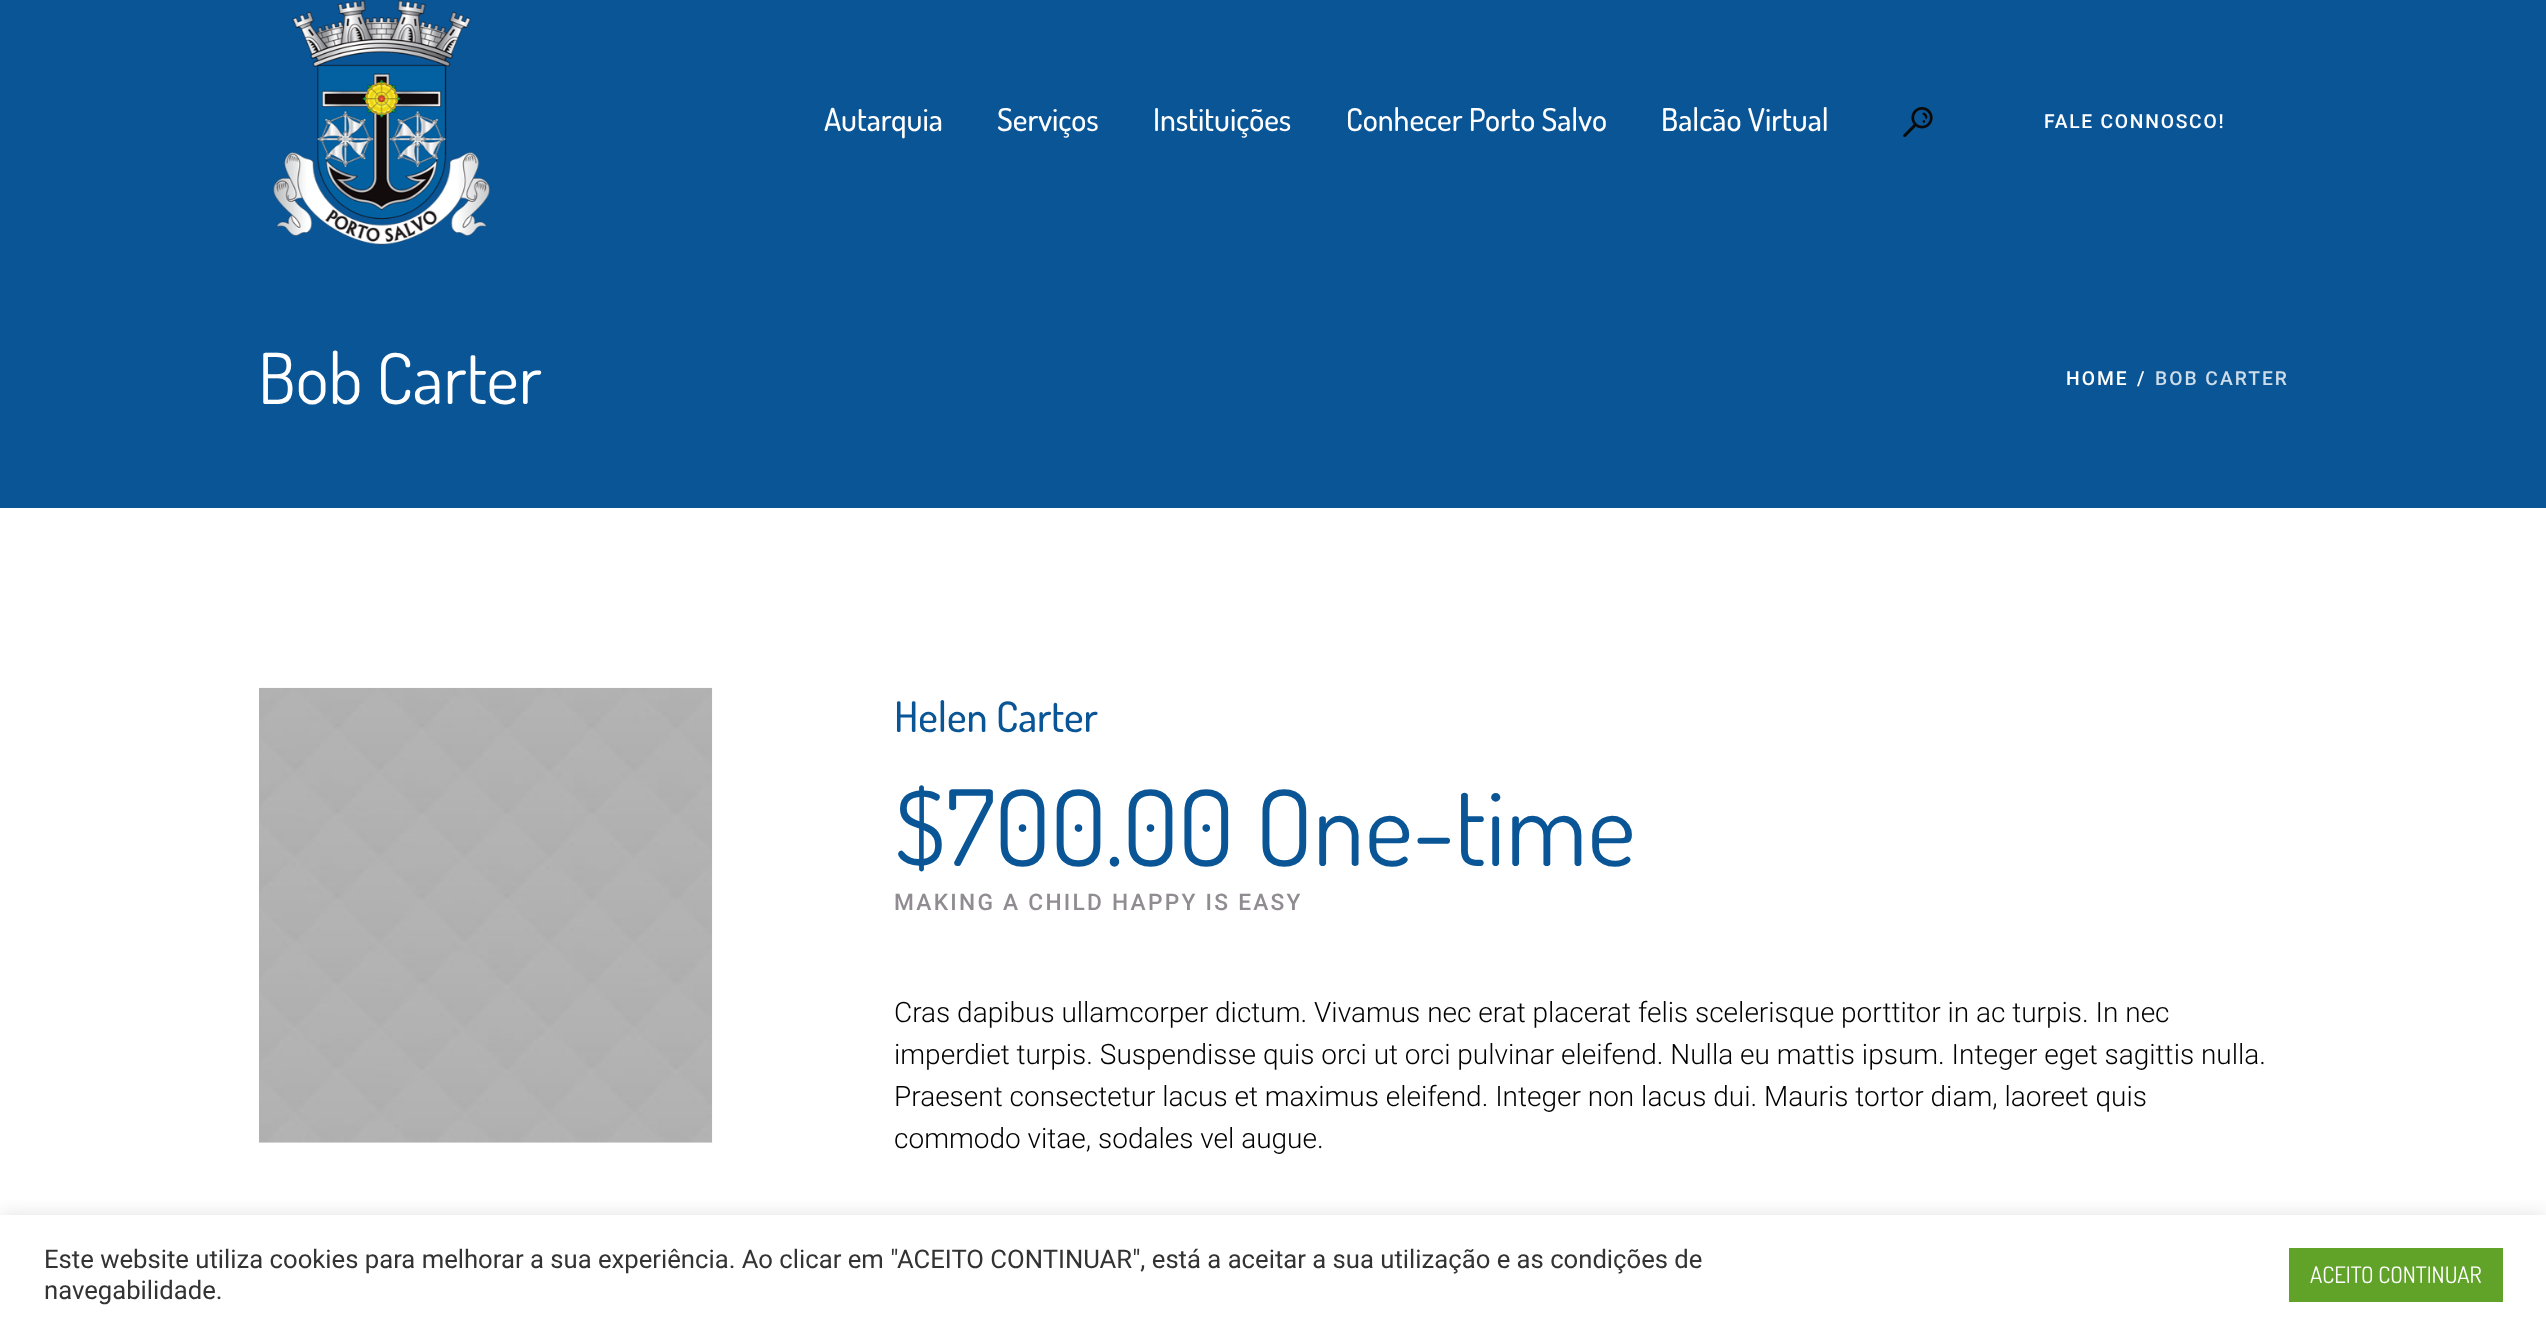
<svg xmlns="http://www.w3.org/2000/svg" width="2546" height="1334">
<defs>
<clipPath id="clip1"><rect x="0" y="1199" width="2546" height="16"/></clipPath>
</defs>
<rect width="100%" height="100%" fill="#fff"/>
<rect width="2546" height="508" fill="#0a5596"/>
<image x="272" y="0" width="219" height="245" href="media/1.png"/>
<text x="824" y="131" style="font-family:Dosis;font-size:31.5px;font-weight:500;fill:#fff">Autarquia</text>
<text x="997" y="131" style="font-family:Dosis;font-size:31.5px;font-weight:500;fill:#fff">Serviços</text>
<text x="1153" y="131" style="font-family:Dosis;font-size:31.5px;font-weight:500;fill:#fff">Instituições</text>
<text x="1346" y="131" style="font-family:Dosis;font-size:31.5px;font-weight:500;fill:#fff">Conhecer Porto Salvo</text>
<text x="1661" y="131" style="font-family:Dosis;font-size:31.5px;font-weight:500;fill:#fff">Balcão Virtual</text>
<image x="1903" y="107" width="30" height="31" href="media/2.png"/>
<text x="2044" y="128" style="font-family:Roboto;font-size:19.25px;font-weight:500;letter-spacing:1.75px;fill:#fff">FALE CONNOSCO!</text>
<text x="258" y="404" style="font-family:Dosis;font-size:70px;fill:#fff">Bob Carter</text>
<text x="2066" y="385" style="font-family:Roboto;font-size:19.25px;font-weight:500;letter-spacing:2px;fill:#fff">HOME</text>
<text x="2137" y="385" style="font-family:Roboto;font-size:19.25px;font-weight:500;letter-spacing:2px;fill:#fff">/</text>
<text x="2155" y="385" style="font-family:Roboto;font-size:19.25px;font-weight:500;letter-spacing:2px;fill:#ceddea">BOB CARTER</text>
<image x="259" y="687" width="454" height="456" href="media/3.png"/>
<text x="894" y="732" style="font-family:Dosis;font-size:42px;font-weight:500;fill:#0a5596">Helen Carter</text>
<text x="894" y="866" style="font-family:Dosis;font-size:105px;fill:#0a5596">$700.00 One-time</text>
<text x="894" y="910" style="font-family:Roboto;font-size:22.75px;font-weight:500;letter-spacing:2.25px;fill:#908c92">MAKING A CHILD HAPPY IS EASY</text>
<text x="894" y="1022" style="font-family:Roboto;font-size:28px;font-weight:300;fill:#000">Cras dapibus ullamcorper dictum. Vivamus nec erat placerat felis scelerisque porttitor in ac turpis. In nec</text>
<text x="894" y="1064" style="font-family:Roboto;font-size:28px;font-weight:300;fill:#000">imperdiet turpis. Suspendisse quis orci ut orci pulvinar eleifend. Nulla eu mattis ipsum. Integer eget sagittis nulla.</text>
<text x="894" y="1106" style="font-family:Roboto;font-size:28px;font-weight:300;fill:#000">Praesent consectetur lacus et maximus eleifend. Integer non lacus dui. Mauris tortor diam, laoreet quis</text>
<text x="894" y="1148" style="font-family:Roboto;font-size:28px;font-weight:300;fill:#000">commodo vitae, sodales vel augue.</text>
<g clip-path="url(#clip1)">
<rect y="1213" width="2546" height="121" fill="#acabab4d" filter="blur(9px)"/>
</g>
<text x="44" y="1268" style="font-family:Roboto;font-size:25.67px;fill:#333">Este website utiliza cookies para melhorar a sua experiência. Ao clicar em "ACEITO CONTINUAR", está a aceitar a sua utilização e as condições de</text>
<text x="44" y="1299" style="font-family:Roboto;font-size:25.67px;fill:#333">navegabilidade.</text>
<rect x="2289" y="1248" width="214" height="54" fill="#61a229"/>
<text x="2310" y="1283" style="font-family:Dosis;font-size:22.75px;fill:#fff">ACEITO CONTINUAR</text>
</svg>
